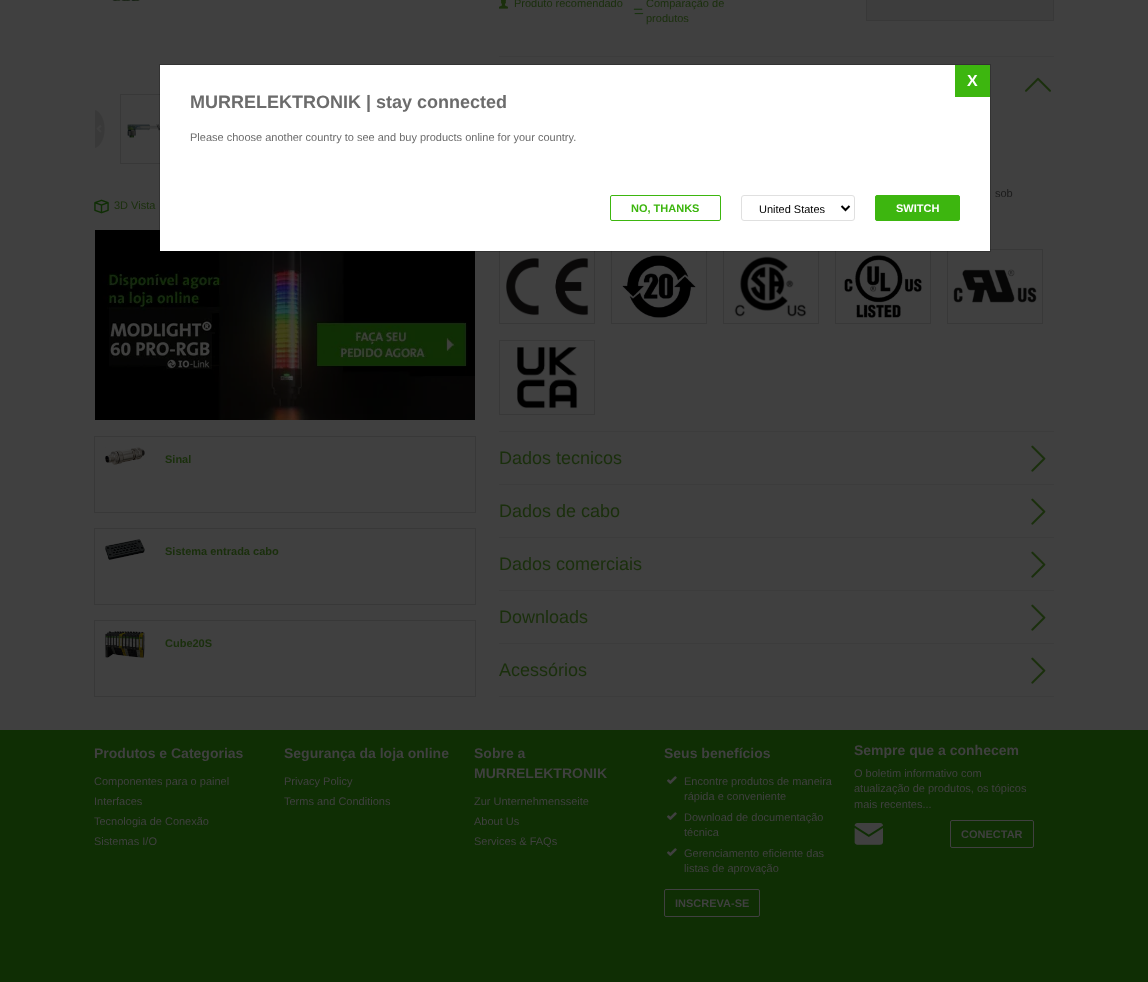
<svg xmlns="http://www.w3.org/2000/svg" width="1148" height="982">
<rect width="100%" height="100%" fill="#404040"/>
<image x="112" y="0" width="28" height="1" href="media/1.png"/>
<image x="94" y="199" width="15" height="15" href="media/2.png"/>
<text x="114" y="209" style="font-family:Liberation Sans;font-size:11px;fill:#1a2f0c">3D Vista</text>
<image x="95" y="230" width="380" height="190" href="media/3.png"/>
<rect x="94.5" y="436.5" width="381" height="76" fill="none" stroke="#383838"/>
<image x="105" y="447" width="40" height="18" href="media/4.png"/>
<text x="165" y="463" style="font-family:Liberation Sans;font-size:11px;font-weight:bold;fill:#1a2f0c">Sinal</text>
<rect x="94.5" y="528.5" width="381" height="76" fill="none" stroke="#383838"/>
<image x="105" y="539" width="40" height="21" href="media/5.png"/>
<text x="165" y="555" style="font-family:Liberation Sans;font-size:11px;font-weight:bold;fill:#1a2f0c">Sistema entrada cabo</text>
<rect x="94.5" y="620.5" width="381" height="76" fill="none" stroke="#383838"/>
<image x="105" y="631" width="40" height="27" href="media/6.png"/>
<text x="165" y="647" style="font-family:Liberation Sans;font-size:11px;font-weight:bold;fill:#1a2f0c">Cube20S</text>
<image x="499" y="0" width="9" height="9" href="media/7.png"/>
<text x="514" y="7" style="font-family:Liberation Sans;font-size:11px;fill:#1a2f0c">Produto recomendado</text>
<text x="646" y="7" style="font-family:Liberation Sans;font-size:11px;fill:#1a2f0c">Comparação de</text>
<image x="633" y="8" width="11" height="7" href="media/8.png"/>
<text x="646" y="22" style="font-family:Liberation Sans;font-size:11px;fill:#1a2f0c">produtos</text>
<rect x="866.5" y="-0.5" width="187" height="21" fill="#3d3d3d" stroke="#383838"/>
<rect x="499" y="56" width="555" height="1" fill="#3c3c3c"/>
<rect x="499" y="431" width="555" height="1" fill="#3c3c3c"/>
<image x="1025" y="77" width="26" height="15" href="media/9.png"/>
<text x="995" y="197" style="font-family:Liberation Sans;font-size:11px;fill:#1b1b1b">sob</text>
<rect x="499.5" y="249.5" width="95" height="74" fill="none" stroke="#383838"/>
<image x="506" y="258" width="83" height="58" href="media/10.png"/>
<rect x="611.5" y="249.5" width="95" height="74" fill="none" stroke="#383838"/>
<image x="622" y="255" width="74" height="63" href="media/11.png"/>
<rect x="723.5" y="249.5" width="95" height="74" fill="none" stroke="#383838"/>
<image x="734" y="256" width="73" height="61" href="media/12.png"/>
<rect x="835.5" y="249.5" width="95" height="74" fill="none" stroke="#383838"/>
<image x="844" y="255" width="78" height="63" href="media/13.png"/>
<rect x="947.5" y="249.5" width="95" height="74" fill="none" stroke="#383838"/>
<image x="953" y="269" width="84" height="34" href="media/14.png"/>
<rect x="499.5" y="340.5" width="95" height="74" fill="none" stroke="#383838"/>
<image x="517" y="347" width="61" height="62" href="media/15.png"/>
<rect x="499" y="484" width="555" height="1" fill="#3c3c3c"/>
<text x="499" y="464" style="font-family:Liberation Sans;font-size:18px;fill:#1a2f0c">Dados tecnicos</text>
<image x="1031" y="445" width="15" height="27" href="media/16.png"/>
<rect x="499" y="537" width="555" height="1" fill="#3c3c3c"/>
<text x="499" y="517" style="font-family:Liberation Sans;font-size:18px;fill:#1a2f0c">Dados de cabo</text>
<image x="1031" y="498" width="15" height="27" href="media/16.png"/>
<rect x="499" y="590" width="555" height="1" fill="#3c3c3c"/>
<text x="499" y="570" style="font-family:Liberation Sans;font-size:18px;fill:#1a2f0c">Dados comerciais</text>
<image x="1031" y="551" width="15" height="27" href="media/16.png"/>
<rect x="499" y="643" width="555" height="1" fill="#3c3c3c"/>
<text x="499" y="623" style="font-family:Liberation Sans;font-size:18px;fill:#1a2f0c">Downloads</text>
<image x="1031" y="604" width="15" height="27" href="media/16.png"/>
<rect x="499" y="696" width="555" height="1" fill="#3c3c3c"/>
<text x="499" y="676" style="font-family:Liberation Sans;font-size:18px;fill:#1a2f0c">Acessórios</text>
<image x="1031" y="657" width="15" height="27" href="media/16.png"/>
<image x="95" y="110" width="10" height="38" href="media/17.png"/>
<rect x="120.5" y="94.5" width="69" height="69" fill="none" stroke="#383838"/>
<image x="127" y="122" width="33" height="16" href="media/18.png"/>
<rect y="730" width="1148" height="252" fill="#0f2e04"/>
<text x="94" y="758" style="font-family:Liberation Sans;font-size:14px;font-weight:bold;fill:#404040">Produtos e Categorias</text>
<text x="94" y="785" style="font-family:Liberation Sans;font-size:11px;fill:#404040">Componentes para o painel</text>
<text x="94" y="805" style="font-family:Liberation Sans;font-size:11px;fill:#404040">Interfaces</text>
<text x="94" y="825" style="font-family:Liberation Sans;font-size:11px;fill:#404040">Tecnologia de Conexão</text>
<text x="94" y="845" style="font-family:Liberation Sans;font-size:11px;fill:#404040">Sistemas I/O</text>
<text x="284" y="758" style="font-family:Liberation Sans;font-size:14px;font-weight:bold;fill:#404040">Segurança da loja online</text>
<text x="284" y="785" style="font-family:Liberation Sans;font-size:11px;fill:#404040">Privacy Policy</text>
<text x="284" y="805" style="font-family:Liberation Sans;font-size:11px;fill:#404040">Terms and Conditions</text>
<text x="474" y="758" style="font-family:Liberation Sans;font-size:14px;font-weight:bold;fill:#404040">Sobre a</text>
<text x="474" y="778" style="font-family:Liberation Sans;font-size:14px;font-weight:bold;fill:#404040">MURRELEKTRONIK</text>
<text x="474" y="805" style="font-family:Liberation Sans;font-size:11px;fill:#404040">Zur Unternehmensseite</text>
<text x="474" y="825" style="font-family:Liberation Sans;font-size:11px;fill:#404040">About Us</text>
<text x="474" y="845" style="font-family:Liberation Sans;font-size:11px;fill:#404040">Services &amp; FAQs</text>
<text x="664" y="758" style="font-family:Liberation Sans;font-size:14px;font-weight:bold;fill:#404040">Seus benefícios</text>
<image x="667" y="776" width="10" height="8" href="media/19.png"/>
<text x="684" y="785" style="font-family:Liberation Sans;font-size:11px;fill:#404040">Encontre produtos de maneira</text>
<text x="684" y="800" style="font-family:Liberation Sans;font-size:11px;fill:#404040">rápida e conveniente</text>
<image x="667" y="812" width="10" height="8" href="media/19.png"/>
<text x="684" y="821" style="font-family:Liberation Sans;font-size:11px;fill:#404040">Download de documentação</text>
<text x="684" y="836" style="font-family:Liberation Sans;font-size:11px;fill:#404040">técnica</text>
<image x="667" y="848" width="10" height="8" href="media/19.png"/>
<text x="684" y="857" style="font-family:Liberation Sans;font-size:11px;fill:#404040">Gerenciamento eficiente das</text>
<text x="684" y="872" style="font-family:Liberation Sans;font-size:11px;fill:#404040">listas de aprovação</text>
<rect x="664.5" y="889.5" width="95" height="27" rx="1.5" fill="none" stroke="#404040"/>
<text x="675" y="907" style="font-family:Liberation Sans;font-size:11px;font-weight:bold;fill:#404040">INSCREVA-SE</text>
<text x="854" y="755" style="font-family:Liberation Sans;font-size:14px;font-weight:bold;fill:#404040">Sempre que a conhecem</text>
<text x="854" y="777" style="font-family:Liberation Sans;font-size:11px;fill:#404040">O boletim informativo com</text>
<text x="854" y="792" style="font-family:Liberation Sans;font-size:11px;fill:#404040">atualização de produtos, os tópicos</text>
<text x="854" y="808" style="font-family:Liberation Sans;font-size:11px;fill:#404040">mais recentes...</text>
<image x="854" y="823" width="29" height="22" href="media/20.png"/>
<rect x="950.5" y="820.5" width="83" height="27" rx="1.5" fill="none" stroke="#404040"/>
<text x="961" y="838" style="font-family:Liberation Sans;font-size:11px;font-weight:bold;fill:#404040">CONECTAR</text>
<rect x="160" y="65" width="830" height="186" fill="#fff"/>
<rect x="159.5" y="64.5" width="831" height="187" fill="none" stroke="#00000033"/>
<rect x="955" y="65" width="35" height="32" fill="#3db60f"/>
<text x="967" y="86" style="font-family:Liberation Sans;font-size:16px;font-weight:bold;fill:#fff">X</text>
<text x="190" y="108" style="font-family:Liberation Sans;font-size:18px;font-weight:bold;fill:#6c6c6c">MURRELEKTRONIK | stay connected</text>
<text x="190" y="141" style="font-family:Liberation Sans;font-size:11px;fill:#6c6c6c">Please choose another country to see and buy products online for your country.</text>
<rect x="610.5" y="195.5" width="110" height="25" rx="1.5" fill="none" stroke="#3db60f"/>
<text x="631" y="212" style="font-family:Liberation Sans;font-size:11px;font-weight:bold;fill:#3db60f">NO, THANKS</text>
<rect x="741.5" y="195.5" width="113" height="25" rx="2.5" fill="none" stroke="#e0e0e0"/>
<path d="M841.5 206l4 4l4-4" fill="none" stroke="#000" stroke-width="2"/>
<text x="759" y="213" style="font-family:Liberation Sans;font-size:11px;fill:#000">United States</text>
<rect x="875.5" y="195.5" width="84" height="25" rx="1.5" fill="#3db60f" stroke="#3db60f"/>
<text x="896" y="212" style="font-family:Liberation Sans;font-size:11px;font-weight:bold;fill:#fff">SWITCH</text>
</svg>
